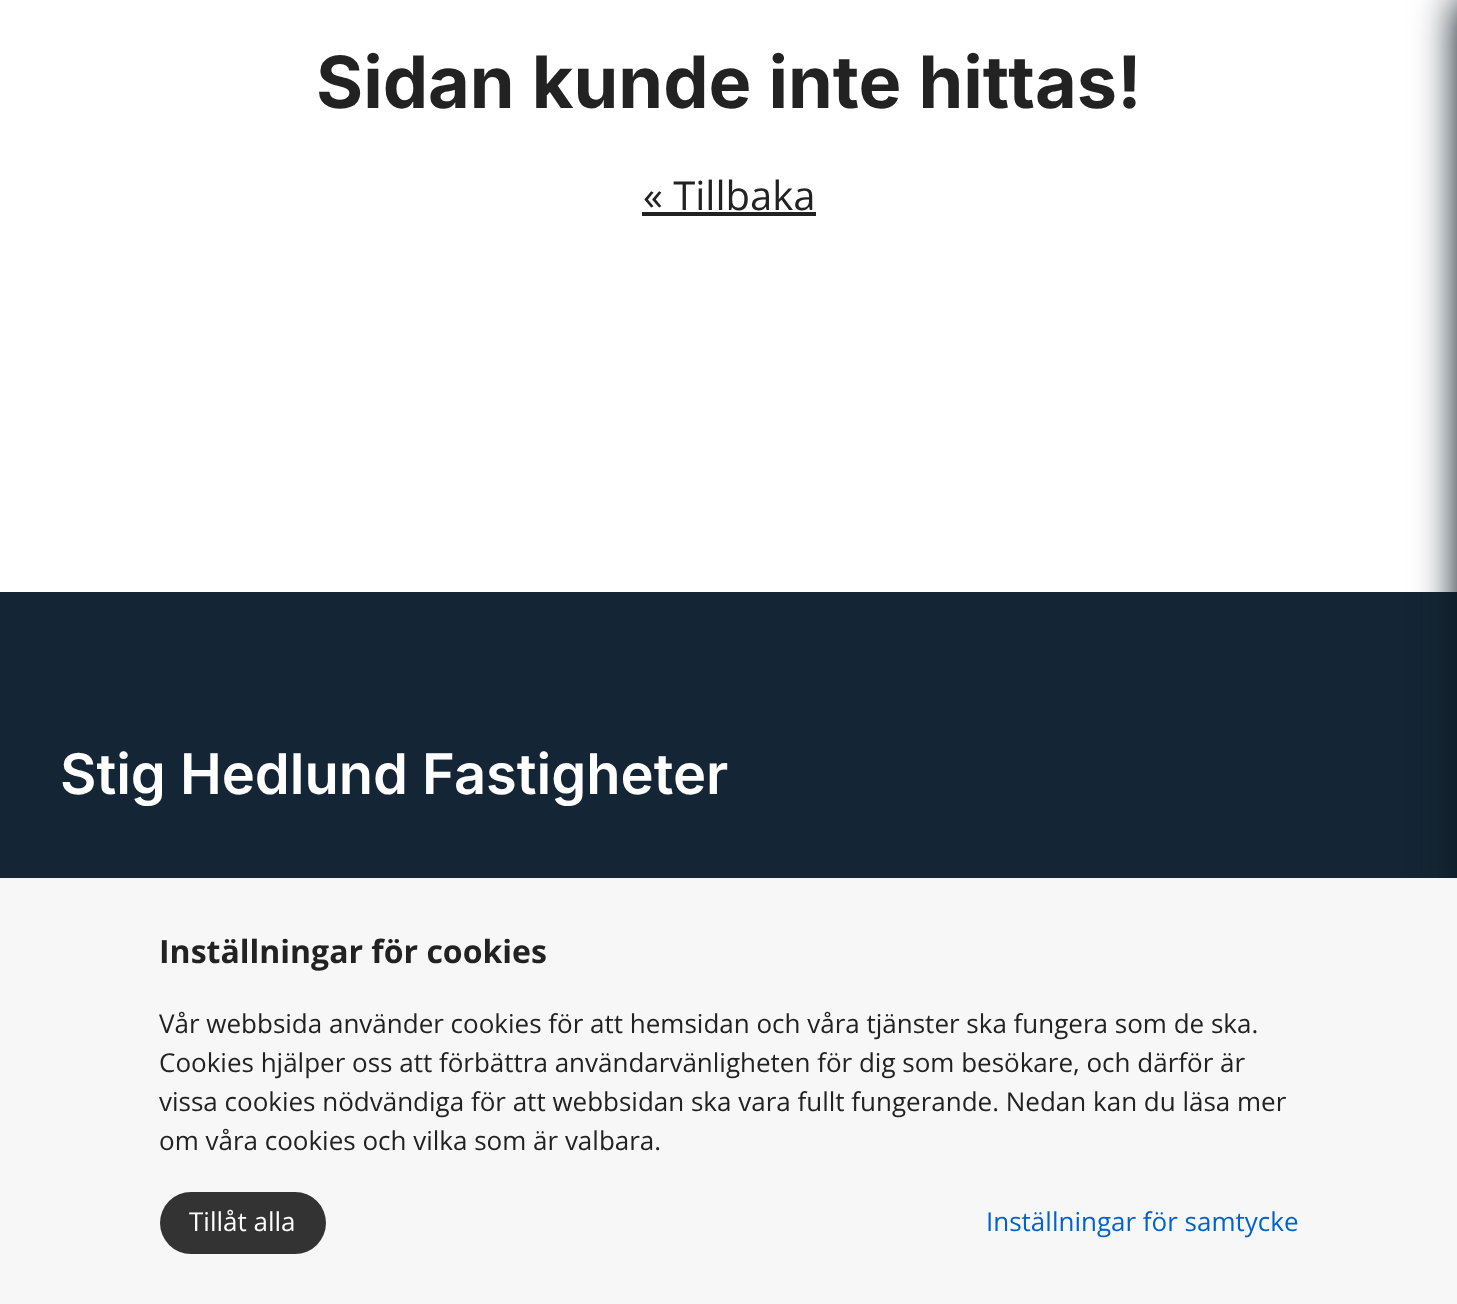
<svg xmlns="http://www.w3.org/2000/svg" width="1457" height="1304">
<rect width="100%" height="100%" fill="#fff"/>
<text x="316" y="108" style="font-family:Inter;font-size:72px;font-weight:bold;fill:#222">Sidan kunde inte hittas!</text>
<text x="643" y="210" style="font-family:Open Sans;font-size:40px;fill:#222">« Tillbaka</text>
<rect x="642" y="212" width="174" height="4" fill="#222"/>
<rect y="592" width="1457" height="286" fill="#142635"/>
<rect x="1456" y="-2" width="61" height="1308" fill="#0c1822" filter="blur(20px)"/>
<text x="60" y="794" style="font-family:Inter;font-size:56px;font-weight:600;fill:#fff">Stig Hedlund Fastigheter</text>
<rect y="878" width="1457" height="426" fill="#f7f7f7"/>
<text x="159" y="963" style="font-family:Open Sans;font-size:32px;font-weight:bold;fill:#222">Inställningar för cookies</text>
<text x="159" y="1033" style="font-family:Open Sans;font-size:26px;fill:#222">Vår webbsida använder cookies för att hemsidan och våra tjänster ska fungera som de ska.</text>
<text x="159" y="1072" style="font-family:Open Sans;font-size:26px;fill:#222">Cookies hjälper oss att förbättra användarvänligheten för dig som besökare, och därför är</text>
<text x="159" y="1111" style="font-family:Open Sans;font-size:26px;fill:#222">vissa cookies nödvändiga för att webbsidan ska vara fullt fungerande. Nedan kan du läsa mer</text>
<text x="159" y="1150" style="font-family:Open Sans;font-size:26px;fill:#222">om våra cookies och vilka som är valbara.</text>
<rect x="160" y="1192" width="166" height="62" rx="31" fill="#333"/>
<text x="189" y="1231" style="font-family:Open Sans;font-size:26px;fill:#fff">Tillåt alla</text>
<text x="986" y="1231" style="font-family:Open Sans;font-size:26px;fill:#0062cc">Inställningar för samtycke</text>
</svg>
